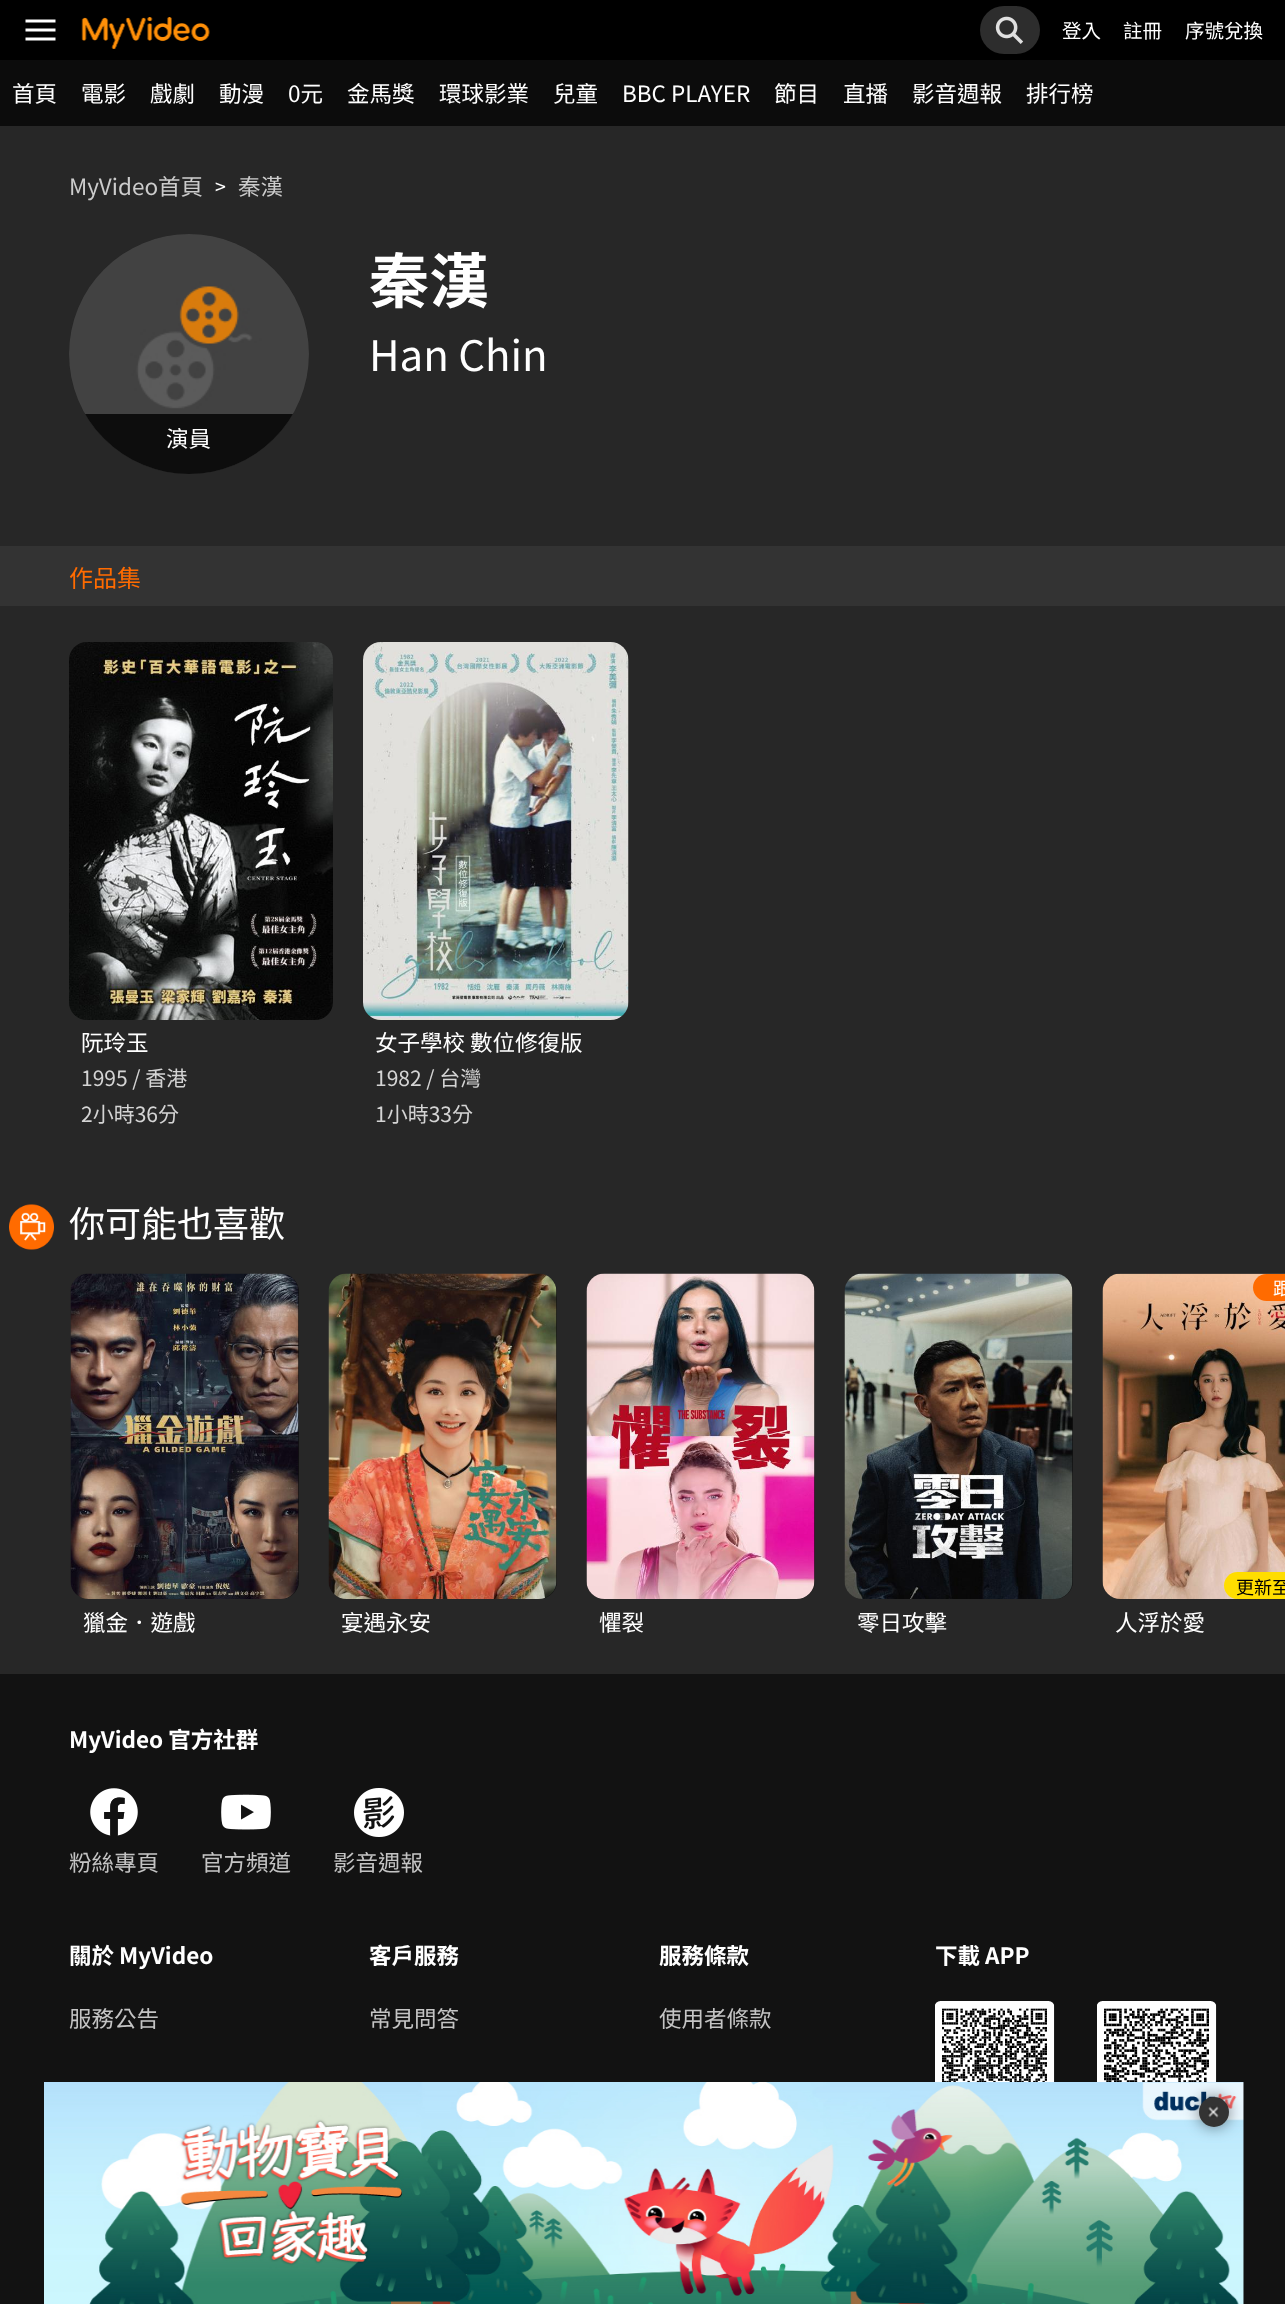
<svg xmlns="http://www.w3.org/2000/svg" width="1285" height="2304">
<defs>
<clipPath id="clip1"><rect x="69" y="234" width="240" height="240" rx="120"/></clipPath>
</defs>
<rect width="100%" height="100%" fill="#272727"/>
<rect width="1285" height="60" fill="#000"/>
<image x="25" y="19" width="31" height="22" href="media/1.png"/>
<image x="81" y="17" width="129" height="32" href="media/2.png"/>
<rect x="980" y="6" width="60" height="48" rx="24" fill="#2d2d2d"/>
<image x="995" y="16" width="29" height="28" href="media/3.png"/>
<text x="1062" y="38" style="font-family:Noto Sans TC;font-size:19.5px;fill:#fff">登入</text>
<text x="1123" y="38" style="font-family:Noto Sans TC;font-size:19.5px;fill:#fff">註冊</text>
<text x="1185" y="38" style="font-family:Noto Sans TC;font-size:19.5px;fill:#fff">序號兌換</text>
<rect y="60" width="1285" height="66" fill="#0c0c0c"/>
<text x="12" y="102" style="font-family:Noto Sans TC;font-size:22.5px;fill:#fff">首頁</text>
<text x="81" y="102" style="font-family:Noto Sans TC;font-size:22.5px;fill:#fff">電影</text>
<text x="150" y="102" style="font-family:Noto Sans TC;font-size:22.5px;fill:#fff">戲劇</text>
<text x="219" y="102" style="font-family:Noto Sans TC;font-size:22.5px;fill:#fff">動漫</text>
<text x="288" y="102" style="font-family:Noto Sans TC;font-size:22.5px;fill:#fff">0元</text>
<text x="347" y="102" style="font-family:Noto Sans TC;font-size:22.5px;fill:#fff">金馬獎</text>
<text x="439" y="102" style="font-family:Noto Sans TC;font-size:22.5px;fill:#fff">環球影業</text>
<text x="553" y="102" style="font-family:Noto Sans TC;font-size:22.5px;fill:#fff">兒童</text>
<text x="622" y="102" style="font-family:Noto Sans TC;font-size:22.5px;fill:#fff">BBC PLAYER</text>
<text x="774" y="102" style="font-family:Noto Sans TC;font-size:22.5px;fill:#fff">節目</text>
<text x="843" y="102" style="font-family:Noto Sans TC;font-size:22.5px;fill:#fff">直播</text>
<text x="912" y="102" style="font-family:Noto Sans TC;font-size:22.5px;fill:#fff">影音週報</text>
<text x="1026" y="102" style="font-family:Noto Sans TC;font-size:22.5px;fill:#fff">排行榜</text>
<rect y="1674" width="1285" height="630" fill="#121212"/>
<image x="44" y="2082" width="1200" height="222" href="media/5.png"/>
<image x="1097" y="2001" width="120" height="81" href="media/20.png"/>
<rect x="1199" y="2097" width="30" height="30" rx="15" fill="#00000080" filter="blur(7.5px)"/>
<circle cx="1214" cy="2112" r="15" fill="#333"/>
<image x="1208" y="2106" width="11" height="12" href="media/4.png"/>
<text x="69" y="195" style="font-family:Noto Sans TC;font-size:22.5px;fill:#ccc">MyVideo首頁</text>
<text x="215" y="194" style="font-family:Noto Sans TC;font-size:19.5px;fill:#fff">&gt;</text>
<text x="238" y="195" style="font-family:Noto Sans TC;font-size:22.5px;fill:#ccc">秦漢</text>
<text x="369" y="303" style="font-family:Noto Sans TC;font-size:60px;font-weight:bold;fill:#fff">秦漢</text>
<text x="369" y="371" style="font-family:Noto Sans TC;font-size:42px;fill:#fff">Han Chin</text>
<image x="69" y="234" width="240" height="240" href="media/6.png"/>
<image x="69" y="234" width="240" height="240" href="media/7.png"/>
<g clip-path="url(#clip1)">
<rect x="85" y="414" width="208" height="60" fill="#000000cc"/>
</g>
<text x="166" y="447" style="font-family:Noto Sans TC;font-size:22.5px;fill:#fff">演員</text>
<rect y="546" width="1285" height="60" fill="#333"/>
<text x="69" y="587" style="font-family:Noto Sans TC;font-size:24px;fill:#ff6b00">作品集</text>
<image x="69" y="642" width="264" height="378" href="media/8.png"/>
<text x="81" y="1051" style="font-family:Noto Sans TC;font-size:22.5px;fill:#fff">阮玲玉</text>
<text x="81" y="1086" style="font-family:Noto Sans TC;font-size:21px;fill:#d4d4d4">1995 / 香港</text>
<text x="81" y="1122" style="font-family:Noto Sans TC;font-size:21px;fill:#d4d4d4">2小時36分</text>
<image x="363" y="642" width="266" height="378" href="media/9.png"/>
<text x="375" y="1051" style="font-family:Noto Sans TC;font-size:22.5px;fill:#fff">女子學校 數位修復版</text>
<text x="375" y="1086" style="font-family:Noto Sans TC;font-size:21px;fill:#d4d4d4">1982 / 台灣</text>
<text x="375" y="1122" style="font-family:Noto Sans TC;font-size:21px;fill:#d4d4d4">1小時33分</text>
<image x="9" y="1204" width="45" height="46" href="media/10.png"/>
<text x="69" y="1237" style="font-family:Noto Sans TC;font-size:36px;fill:#fff">你可能也喜歡</text>
<rect x="71" y="1274" width="228" height="325" rx="18" fill="#121212"/>
<image x="70" y="1273" width="229" height="326" href="media/11.png"/>
<text x="83" y="1631" style="font-family:Noto Sans TC;font-size:22.5px;fill:#fff">獵金．遊戲</text>
<rect x="329" y="1274" width="228" height="325" rx="18" fill="#121212"/>
<image x="328" y="1273" width="229" height="326" href="media/12.png"/>
<text x="341" y="1631" style="font-family:Noto Sans TC;font-size:22.5px;fill:#fff">宴遇永安</text>
<rect x="587" y="1274" width="228" height="325" rx="18" fill="#121212"/>
<image x="586" y="1273" width="229" height="326" href="media/13.png"/>
<text x="599" y="1631" style="font-family:Noto Sans TC;font-size:22.5px;fill:#fff">懼裂</text>
<rect x="845" y="1274" width="228" height="325" rx="18" fill="#121212"/>
<image x="844" y="1273" width="229" height="326" href="media/14.png"/>
<text x="857" y="1631" style="font-family:Noto Sans TC;font-size:22.5px;fill:#fff">零日攻擊</text>
<image x="1102" y="1273" width="183" height="326" href="media/15.png"/>
<path d="M1266.5 1274h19.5v27h-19.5c-7.5 0-13.5-6-13.5-13.5c0-7.5 6-13.5 13.5-13.5z" fill="#ff6b00"/>
<text x="1273" y="1295" style="font-family:Noto Sans TC;font-size:18px;fill:#fff">跟</text>
<path d="M1237.5 1572h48.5v27h-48.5c-7.5 0-13.5-6-13.5-13.5c0-7.5 6-13.5 13.5-13.5z" fill="#fd0"/>
<text x="1236" y="1594" style="font-family:Noto Sans TC;font-size:18px;fill:#000">更新至</text>
<text x="1115" y="1631" style="font-family:Noto Sans TC;font-size:22.5px;fill:#fff">人浮於愛</text>
<text x="69" y="1748" style="font-family:Noto Sans TC;font-size:22.5px;font-weight:bold;fill:#fff">MyVideo 官方社群</text>
<image x="90" y="1788" width="48" height="48" href="media/16.png"/>
<text x="69" y="1871" style="font-family:Noto Sans TC;font-size:22.5px;fill:#c4c4c4">粉絲專頁</text>
<image x="221" y="1794" width="50" height="36" href="media/17.png"/>
<text x="201" y="1871" style="font-family:Noto Sans TC;font-size:22.5px;fill:#c4c4c4">官方頻道</text>
<image x="354" y="1788" width="50" height="49" href="media/18.png"/>
<text x="333" y="1871" style="font-family:Noto Sans TC;font-size:22.5px;fill:#c4c4c4">影音週報</text>
<text x="69" y="1964" style="font-family:Noto Sans TC;font-size:22.5px;font-weight:bold;fill:#fff">關於 MyVideo</text>
<text x="69" y="2027" style="font-family:Noto Sans TC;font-size:22.5px;fill:#c4c4c4">服務公告</text>
<text x="369" y="1964" style="font-family:Noto Sans TC;font-size:22.5px;font-weight:bold;fill:#fff">客戶服務</text>
<text x="369" y="2027" style="font-family:Noto Sans TC;font-size:22.5px;fill:#c4c4c4">常見問答</text>
<text x="659" y="1964" style="font-family:Noto Sans TC;font-size:22.5px;font-weight:bold;fill:#fff">服務條款</text>
<text x="659" y="2027" style="font-family:Noto Sans TC;font-size:22.5px;fill:#c4c4c4">使用者條款</text>
<text x="935" y="1964" style="font-family:Noto Sans TC;font-size:22.5px;font-weight:bold;fill:#fff">下載 APP</text>
<image x="935" y="2001" width="120" height="81" href="media/19.png"/>
</svg>
